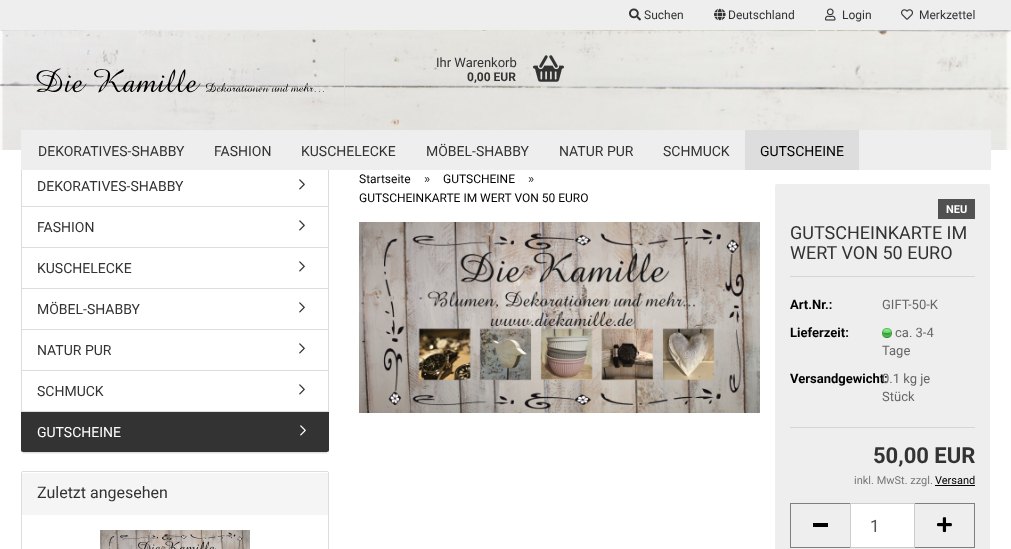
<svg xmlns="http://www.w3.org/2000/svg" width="1011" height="549">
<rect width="100%" height="100%" fill="#fff"/>
<image x="0" y="30" width="1011" height="120" href="media/1.png"/>
<rect width="1011" height="30" fill="#eee"/>
<image x="629" y="8" width="12" height="13" href="media/2.png"/>
<text x="644" y="19" style="font-family:Roboto;font-size:12px;fill:#333">Suchen</text>
<image x="714" y="8" width="12" height="13" href="media/3.png"/>
<text x="728" y="19" style="font-family:Roboto;font-size:12px;fill:#333">Deutschland</text>
<image x="825" y="8" width="11" height="13" href="media/4.png"/>
<text x="842" y="19" style="font-family:Roboto;font-size:12px;fill:#333">Login</text>
<image x="901" y="9" width="12" height="11" href="media/5.png"/>
<text x="919" y="19" style="font-family:Roboto;font-size:12px;fill:#333">Merkzettel</text>
<image x="36" y="68" width="288" height="25" href="media/6.png"/>
<rect x="344" y="48" width="1" height="60" fill="#ddd"/>
<text x="436" y="67" style="font-family:Roboto;font-size:13px;fill:#333">Ihr Warenkorb</text>
<text x="467" y="81" style="font-family:Roboto;font-size:12px;font-weight:bold;fill:#333">0,00 EUR</text>
<image x="533" y="55" width="31" height="27" href="media/7.png"/>
<rect x="21" y="166" width="308" height="288" rx="2" fill="#0000000d" filter="blur(0.5px)"/>
<rect x="21" y="165" width="308" height="288" rx="2" fill="#fff"/>
<rect x="328" y="166" width="1" height="286" fill="#ddd"/>
<rect x="21" y="166" width="1" height="286" fill="#ddd"/>
<rect x="21" y="130" width="970" height="40" fill="#eee"/>
<text x="38" y="156" style="font-family:Roboto;font-size:14px;fill:#333">DEKORATIVES-SHABBY</text>
<text x="214" y="156" style="font-family:Roboto;font-size:14px;fill:#333">FASHION</text>
<text x="301" y="156" style="font-family:Roboto;font-size:14px;fill:#333">KUSCHELECKE</text>
<text x="426" y="156" style="font-family:Roboto;font-size:14px;fill:#333">MÖBEL-SHABBY</text>
<text x="559" y="156" style="font-family:Roboto;font-size:14px;fill:#333">NATUR PUR</text>
<text x="663" y="156" style="font-family:Roboto;font-size:14px;fill:#333">SCHMUCK</text>
<rect x="745" y="130" width="114" height="40" fill="#ddd"/>
<text x="760" y="156" style="font-family:Roboto;font-size:14px;fill:#000">GUTSCHEINE</text>
<rect x="22" y="206" width="306" height="1" fill="#ddd"/>
<text x="37" y="191" style="font-family:Roboto;font-size:14px;fill:#333">DEKORATIVES-SHABBY</text>
<image x="299" y="179" width="6" height="11" href="media/8.png"/>
<rect x="22" y="247" width="306" height="1" fill="#ddd"/>
<text x="37" y="232" style="font-family:Roboto;font-size:14px;fill:#333">FASHION</text>
<image x="299" y="220" width="6" height="11" href="media/8.png"/>
<rect x="22" y="288" width="306" height="1" fill="#ddd"/>
<text x="37" y="273" style="font-family:Roboto;font-size:14px;fill:#333">KUSCHELECKE</text>
<image x="299" y="261" width="6" height="11" href="media/8.png"/>
<rect x="22" y="329" width="306" height="1" fill="#ddd"/>
<text x="37" y="314" style="font-family:Roboto;font-size:14px;fill:#333">MÖBEL-SHABBY</text>
<image x="299" y="302" width="6" height="11" href="media/8.png"/>
<rect x="22" y="370" width="306" height="1" fill="#ddd"/>
<text x="37" y="355" style="font-family:Roboto;font-size:14px;fill:#333">NATUR PUR</text>
<image x="299" y="343" width="6" height="11" href="media/8.png"/>
<rect x="22" y="411" width="306" height="1" fill="#ddd"/>
<text x="37" y="396" style="font-family:Roboto;font-size:14px;fill:#333">SCHMUCK</text>
<image x="299" y="384" width="6" height="11" href="media/8.png"/>
<rect x="23" y="452" width="304" height="1" fill="#ddd"/>
<path d="M21 412h308v38c0 1-1 2-2 2h-304c-1 0-2-1-2-2z" fill="#333"/>
<text x="37" y="437" style="font-family:Roboto;font-size:14px;fill:#fff">GUTSCHEINE</text>
<image x="300" y="425" width="6" height="11" href="media/9.png"/>
<rect x="21.5" y="471.5" width="307" height="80" rx="1.5" fill="none" stroke="#ddd"/>
<path d="M23 472h304c.5 0 1 .5 1 1v42h-306v-42c0-.5 .5-1 1-1z" fill="#f5f5f5"/>
<path d="M23 473h304c1 0 1 0 1 1c0-1 0-2-1-2h-304h-1v2z" fill="#fff"/>
<text x="37" y="498" style="font-family:Roboto;font-size:16px;fill:#333">Zuletzt angesehen</text>
<image x="100" y="530" width="150" height="19" href="media/10.png"/>
<text x="359" y="183" style="font-family:Roboto;font-size:12px;fill:#000">Startseite</text>
<text x="424" y="183" style="font-family:Roboto;font-size:13px;fill:#333">»</text>
<text x="443" y="183" style="font-family:Roboto;font-size:12px;fill:#000">GUTSCHEINE</text>
<text x="528" y="183" style="font-family:Roboto;font-size:13px;fill:#333">»</text>
<text x="359" y="202" style="font-family:Roboto;font-size:12px;fill:#000">GUTSCHEINKARTE IM WERT VON 50 EURO</text>
<image x="359" y="222" width="401" height="191" href="media/11.png"/>
<rect x="775" y="184" width="215" height="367" rx="2" fill="#eee"/>
<rect x="938" y="199" width="37" height="20" fill="#515151"/>
<text x="946" y="213" style="font-family:Roboto;font-size:11px;font-weight:bold;fill:#fff">NEU</text>
<rect x="790" y="276" width="185" height="1" fill="#d5d5d5"/>
<text x="790" y="239" style="font-family:Roboto;font-size:18px;fill:#333">GUTSCHEINKARTE IM</text>
<text x="790" y="259" style="font-family:Roboto;font-size:18px;fill:#333">WERT VON 50 EURO</text>
<rect x="790" y="427" width="185" height="1" fill="#d5d5d5"/>
<text x="790" y="309" style="font-family:Roboto;font-size:13px;font-weight:bold;fill:#000">Art.Nr.:</text>
<text x="882" y="309" style="font-family:Roboto;font-size:13px;fill:#666">GIFT-50-K</text>
<text x="790" y="337" style="font-family:Roboto;font-size:13px;font-weight:bold;fill:#000">Lieferzeit:</text>
<image x="882" y="328" width="10" height="10" href="media/12.png"/>
<text x="895" y="337" style="font-family:Roboto;font-size:13px;fill:#666">ca. 3-4</text>
<text x="882" y="355" style="font-family:Roboto;font-size:13px;fill:#666">Tage</text>
<text x="790" y="383" style="font-family:Roboto;font-size:13px;font-weight:bold;fill:#000">Versandgewicht:</text>
<text x="882" y="383" style="font-family:Roboto;font-size:13px;fill:#666">0.1 kg je</text>
<text x="882" y="401" style="font-family:Roboto;font-size:13px;fill:#666">Stück</text>
<text x="873" y="463" style="font-family:Roboto;font-size:22px;font-weight:bold;fill:#333">50,00 EUR</text>
<text x="854" y="484" style="font-family:Roboto;font-size:11px;fill:#777">inkl. MwSt. zzgl.</text>
<text x="935" y="484" style="font-family:Roboto;font-size:11px;fill:#000">Versand</text>
<rect x="935" y="485" width="40" height="1" fill="#000"/>
<rect x="790" y="503" width="60" height="1" fill="#7c8080"/>
<rect x="790" y="547" width="60" height="1" fill="#7c8080"/>
<rect x="790" y="503" width="1" height="45" fill="#7c8080"/>
<rect x="813" y="523" width="15" height="4" fill="#000"/>
<rect x="850.5" y="503.5" width="64" height="44" fill="#fff" stroke="#ccc"/>
<text x="870" y="532" style="font-family:Roboto;font-size:17px;fill:#555">1</text>
<rect x="915" y="503" width="60" height="1" fill="#7c8080"/>
<rect x="974" y="503" width="1" height="45" fill="#7c8080"/>
<rect x="915" y="547" width="60" height="1" fill="#7c8080"/>
<image x="937" y="517" width="15" height="16" href="media/13.png"/>
</svg>
